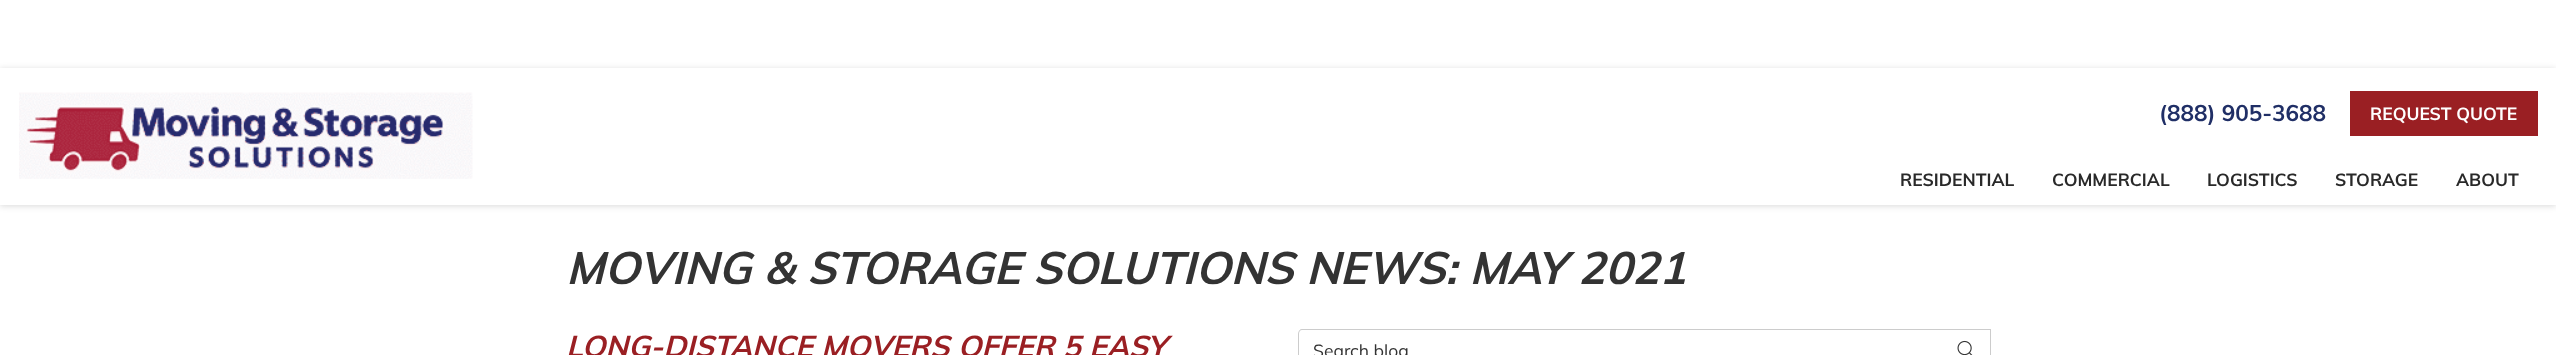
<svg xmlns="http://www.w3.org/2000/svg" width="2556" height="355">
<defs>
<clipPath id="clip1"><path d="M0 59h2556v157h-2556zm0 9h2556v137h-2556z" clip-rule="evenodd"/></clipPath>
</defs>
<rect width="100%" height="100%" fill="#fff"/>
<g clip-path="url(#clip1)">
<rect y="69" width="2556" height="137" fill="#00000026" filter="blur(3px)"/>
</g>
<image x="19" y="92" width="454" height="87" href="media/1.png"/>
<text x="2159" y="121" style="font-family:Muli;font-size:22.5px;font-weight:bold;fill:#202f66">(888) 905-3688</text>
<rect x="2350" y="91" width="188" height="45" fill="#9a1f23"/>
<text x="2370" y="120" style="font-family:Muli;font-size:17.5px;font-weight:bold;fill:#fff">REQUEST QUOTE</text>
<text x="1900" y="186" style="font-family:Muli;font-size:17.5px;font-weight:bold;fill:#292929">RESIDENTIAL</text>
<text x="2052" y="186" style="font-family:Muli;font-size:17.5px;font-weight:bold;fill:#292929">COMMERCIAL</text>
<text x="2207" y="186" style="font-family:Muli;font-size:17.5px;font-weight:bold;fill:#292929">LOGISTICS</text>
<text x="2335" y="186" style="font-family:Muli;font-size:17.5px;font-weight:bold;fill:#292929">STORAGE</text>
<text x="2456" y="186" style="font-family:Muli;font-size:17.5px;font-weight:bold;fill:#292929">ABOUT</text>
<text x="566" y="284" style="font-family:Muli;font-size:45px;font-weight:bold;font-style:italic;fill:#333">MOVING &amp; STORAGE SOLUTIONS NEWS: MAY 2021</text>
<text x="566" y="357" style="font-family:Muli;font-size:30px;font-weight:bold;font-style:italic;fill:#9a1f23">LONG-DISTANCE MOVERS OFFER 5 EASY</text>
<rect x="1943" y="329" width="48" height="1" fill="#ccc"/>
<path d="M1303 329h641v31h-641c-3 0-5-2-5-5v-21c0-3 2-5 5-5z" fill="#fff"/>
<path d="M1302 329h642v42h-642c-2 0-4-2-4-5v-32c0-3 2-5 4-5zm0 1h642v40h-642c-2 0-3-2-3-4v-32c0-2 1-4 3-4z" fill="#ccc" fill-rule="evenodd"/>
<text x="1313" y="357" style="font-family:Muli;font-size:17.5px;fill:#333">Search blog</text>
<rect x="1990" y="329" width="1" height="26" fill="#ccc"/>
<image x="1957" y="340" width="16" height="15" href="media/2.png"/>
</svg>
